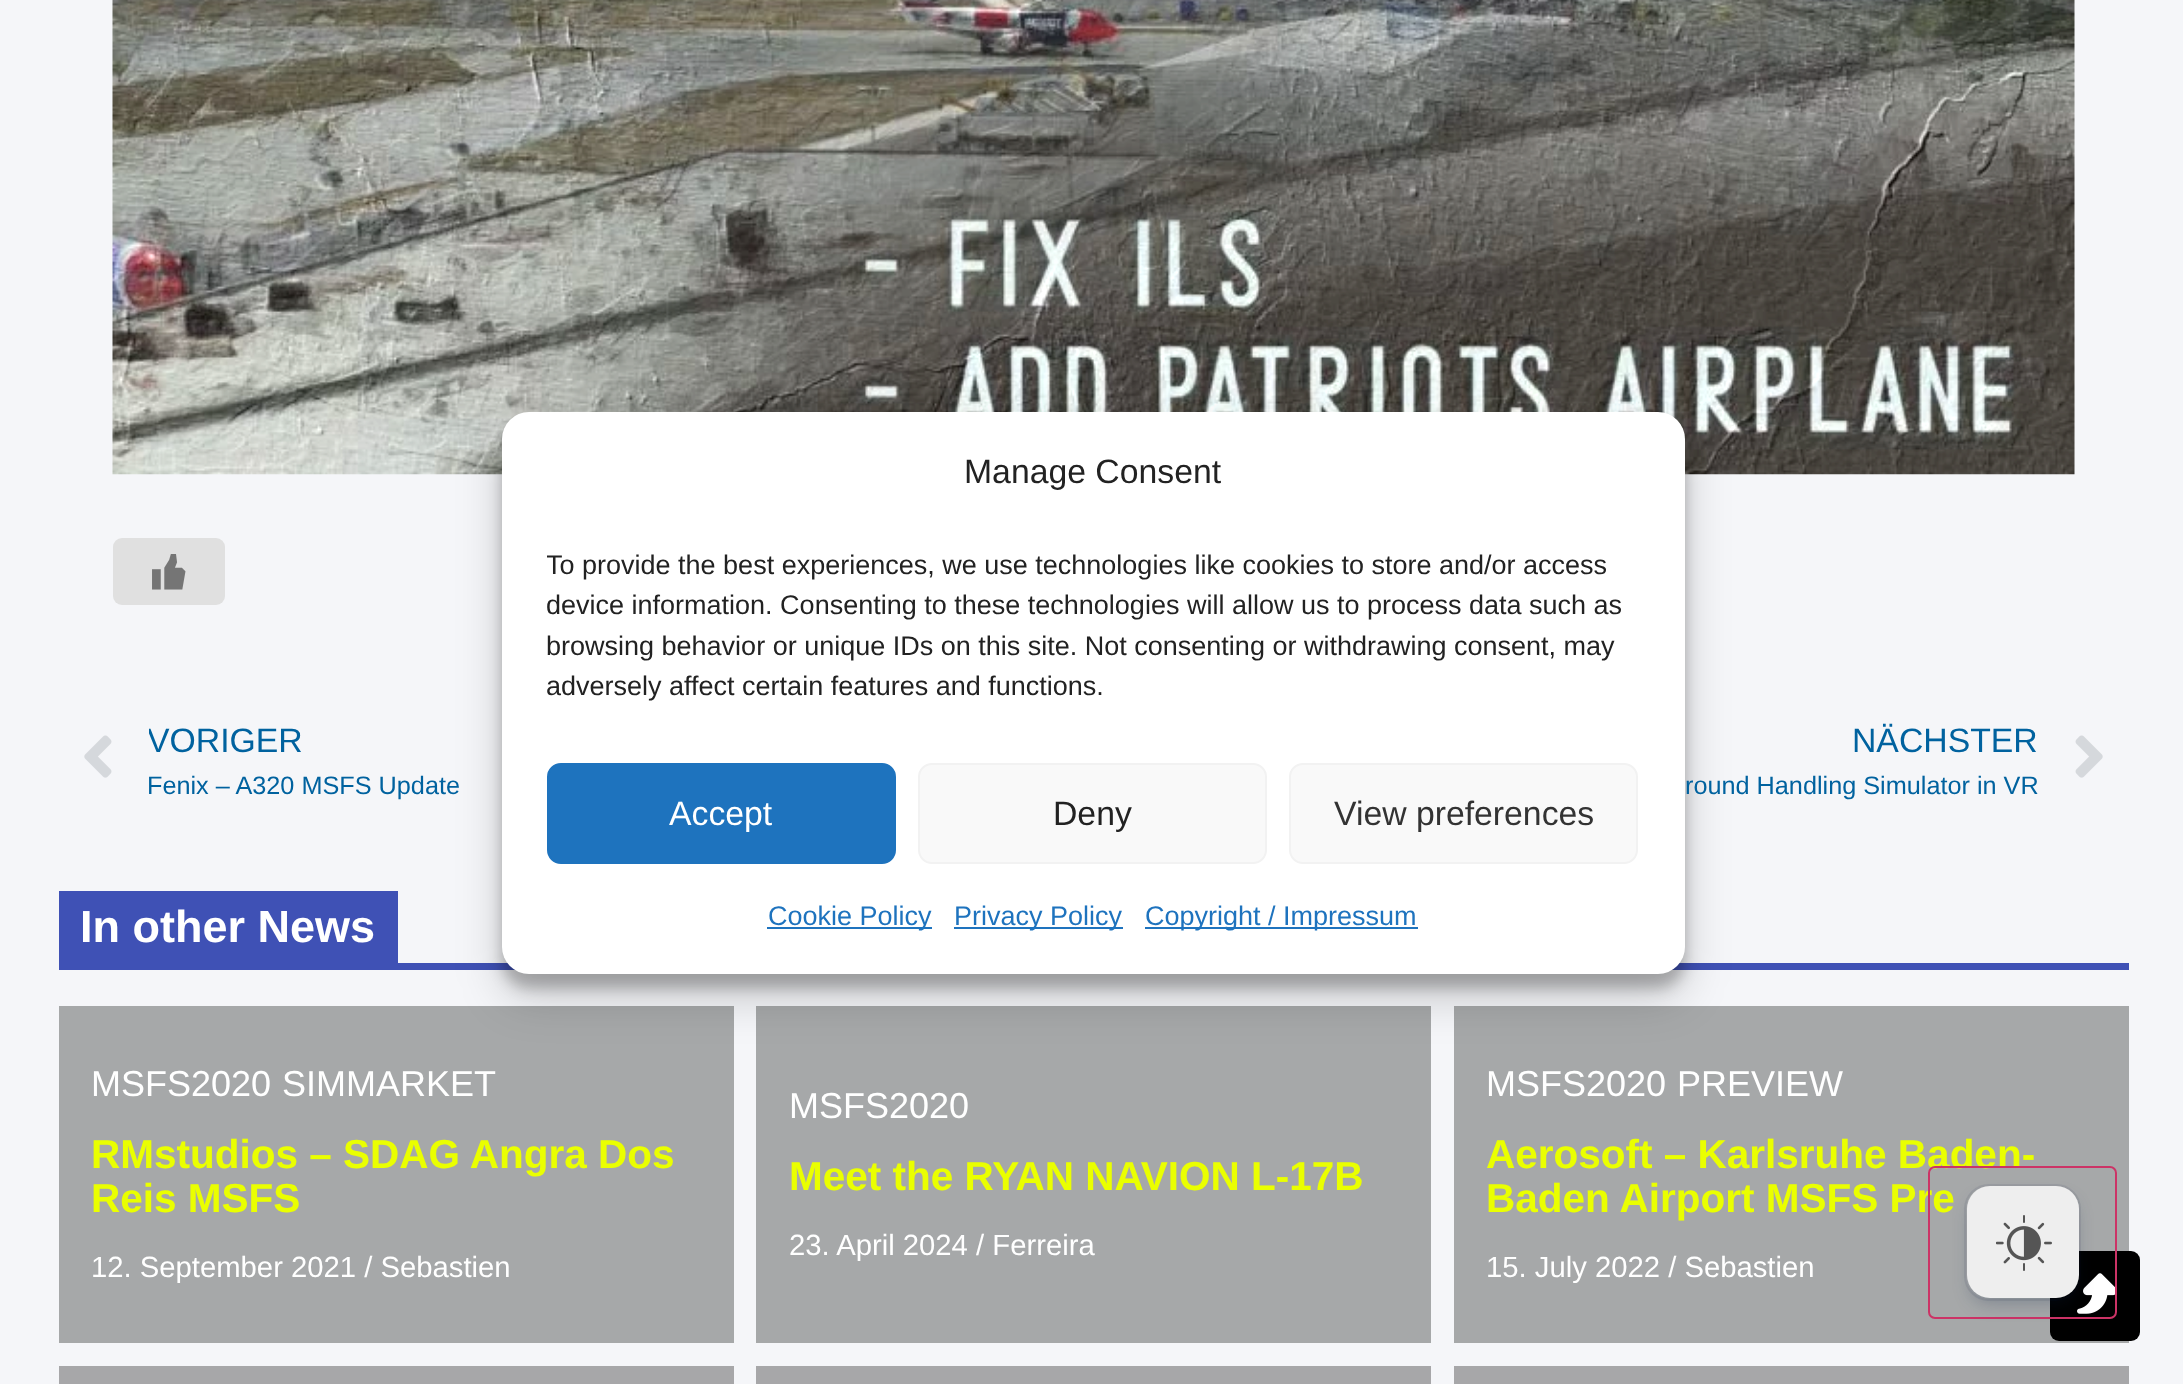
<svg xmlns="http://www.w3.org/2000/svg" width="2183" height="1384">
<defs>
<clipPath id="clip1"><rect x="547" y="545" width="1093" height="173"/></clipPath>
<clipPath id="clip2"><rect x="149" y="716" width="310" height="51"/></clipPath>
</defs>
<rect width="100%" height="100%" fill="#f5f6f9"/>
<image x="112" y="0" width="1963" height="475" href="media/1.png"/>
<rect x="59" y="963" width="2070" height="7" fill="#3f51b5"/>
<rect x="59" y="1006" width="675" height="337" fill="#a6a8a9"/>
<rect x="756" y="1006" width="675" height="337" fill="#a6a8a9"/>
<rect x="1454" y="1006" width="675" height="337" fill="#a6a8a9"/>
<rect x="502" y="425" width="1183" height="563" rx="27" fill="#0000003b" filter="blur(7px)"/>
<rect x="502" y="434" width="1183" height="563" rx="27" fill="#00000030" filter="blur(22.5px)"/>
<rect x="502" y="412" width="1183" height="562" rx="27" fill="#fff"/>
<text x="964" y="483" style="font-family:Liberation Sans;font-size:33.75px;fill:#222">Manage Consent</text>
<g clip-path="url(#clip1)">
<text x="546" y="574" style="font-family:Liberation Sans;font-size:27px;fill:#222">To provide the best experiences, we use technologies like cookies to store and/or access</text>
<text x="546" y="614" style="font-family:Liberation Sans;font-size:27px;fill:#222">device information. Consenting to these technologies will allow us to process data such as</text>
</g>
<text x="546" y="655" style="font-family:Liberation Sans;font-size:27px;fill:#222">browsing behavior or unique IDs on this site. Not consenting or withdrawing consent, may</text>
<text x="546" y="695" style="font-family:Liberation Sans;font-size:27px;fill:#222">adversely affect certain features and functions.</text>
<rect x="548" y="764" width="347" height="99" rx="13" fill="#1e73be" stroke="#1e73be" stroke-width="2"/>
<text x="669" y="825" style="font-family:Liberation Sans;font-size:33.75px;fill:#fff">Accept</text>
<rect x="919" y="764" width="347" height="99" rx="13" fill="#f9f9f9" stroke="#f2f2f2" stroke-width="2"/>
<text x="1053" y="825" style="font-family:Liberation Sans;font-size:33.75px;fill:#222">Deny</text>
<rect x="1290" y="764" width="347" height="99" rx="13" fill="#f9f9f9" stroke="#f2f2f2" stroke-width="2"/>
<text x="1334" y="825" style="font-family:Liberation Sans;font-size:33.75px;fill:#333">View preferences</text>
<rect x="767" y="927" width="165" height="2" fill="#1e73be"/>
<text x="768" y="925" style="font-family:Liberation Sans;font-size:27px;fill:#1e73be">Cookie Policy</text>
<rect x="954" y="927" width="169" height="2" fill="#1e73be"/>
<text x="954" y="925" style="font-family:Liberation Sans;font-size:27px;fill:#1e73be">Privacy Policy</text>
<rect x="1145" y="927" width="273" height="2" fill="#1e73be"/>
<text x="1145" y="925" style="font-family:Liberation Sans;font-size:27px;fill:#1e73be">Copyright / Impressum</text>
<rect x="113" y="538" width="112" height="67" rx="9" fill="#e0e0e0"/>
<image x="152" y="554" width="34" height="36" href="media/2.png"/>
<image x="84" y="735" width="28" height="43" href="media/3.png"/>
<g clip-path="url(#clip2)">
<text x="147" y="752" style="font-family:Liberation Sans;font-size:33.75px;fill:#00629f">VORIGER</text>
</g>
<text x="147" y="794" style="font-family:Liberation Sans;font-size:25.25px;fill:#00629f">Fenix – A320 MSFS Update</text>
<text x="1852" y="752" style="font-family:Liberation Sans;font-size:33.75px;fill:#00629f">NÄCHSTER</text>
<text x="1685" y="794" style="font-family:Liberation Sans;font-size:25.25px;fill:#00629f">round Handling Simulator in VR</text>
<image x="2075" y="735" width="28" height="43" href="media/4.png"/>
<rect x="59" y="891" width="339" height="72" fill="#3f51b5"/>
<text x="80" y="942" style="font-family:Liberation Sans;font-size:45px;font-weight:bold;fill:#fff">In other News</text>
<text x="91" y="1096" style="font-family:Liberation Sans;font-size:36px;fill:#fff">MSFS2020</text>
<text x="282" y="1096" style="font-family:Liberation Sans;font-size:36px;fill:#fff">SIMMARKET</text>
<text x="91" y="1168" style="font-family:Liberation Sans;font-size:40.5px;font-weight:bold;fill:#eaff00">RMstudios – SDAG Angra Dos</text>
<text x="91" y="1212" style="font-family:Liberation Sans;font-size:40.5px;font-weight:bold;fill:#eaff00">Reis MSFS</text>
<text x="91" y="1277" style="font-family:Liberation Sans;font-size:29.25px;fill:#fff">12. September 2021 / Sebastien</text>
<text x="789" y="1118" style="font-family:Liberation Sans;font-size:36px;fill:#fff">MSFS2020</text>
<text x="789" y="1190" style="font-family:Liberation Sans;font-size:40.5px;font-weight:bold;fill:#eaff00">Meet the RYAN NAVION L-17B</text>
<text x="789" y="1255" style="font-family:Liberation Sans;font-size:29.25px;fill:#fff">23. April 2024 / Ferreira</text>
<text x="1486" y="1096" style="font-family:Liberation Sans;font-size:36px;fill:#fff">MSFS2020</text>
<text x="1677" y="1096" style="font-family:Liberation Sans;font-size:36px;fill:#fff">PREVIEW</text>
<text x="1486" y="1168" style="font-family:Liberation Sans;font-size:40.5px;font-weight:bold;fill:#eaff00">Aerosoft – Karlsruhe Baden-</text>
<text x="1486" y="1212" style="font-family:Liberation Sans;font-size:40.5px;font-weight:bold;fill:#eaff00">Baden Airport MSFS Pre</text>
<text x="1486" y="1277" style="font-family:Liberation Sans;font-size:29.25px;fill:#fff">15. July 2022 / Sebastien</text>
<rect x="59" y="1366" width="675" height="18" fill="#a7a7a9"/>
<rect x="756" y="1366" width="675" height="18" fill="#a7a7a9"/>
<rect x="1454" y="1366" width="675" height="18" fill="#a7a7a9"/>
<rect x="2050" y="1251" width="90" height="90" rx="9" fill="#000"/>
<image x="2077" y="1273" width="38" height="41" href="media/6.png"/>
<rect x="1929" y="1167" width="187" height="151" rx="6" fill="none" stroke="#c36" stroke-width="2"/>
<rect x="1965" y="1185" width="115" height="115" rx="24" fill="none" stroke="#091e4214" stroke-width="2"/>
<rect x="1971" y="1199" width="104" height="104" rx="18" fill="#091e4240" filter="blur(9px)"/>
<rect x="1967" y="1186" width="112" height="112" rx="23" fill="#eee"/>
<image x="1996" y="1215" width="56" height="56" href="media/5.png"/>
</svg>
